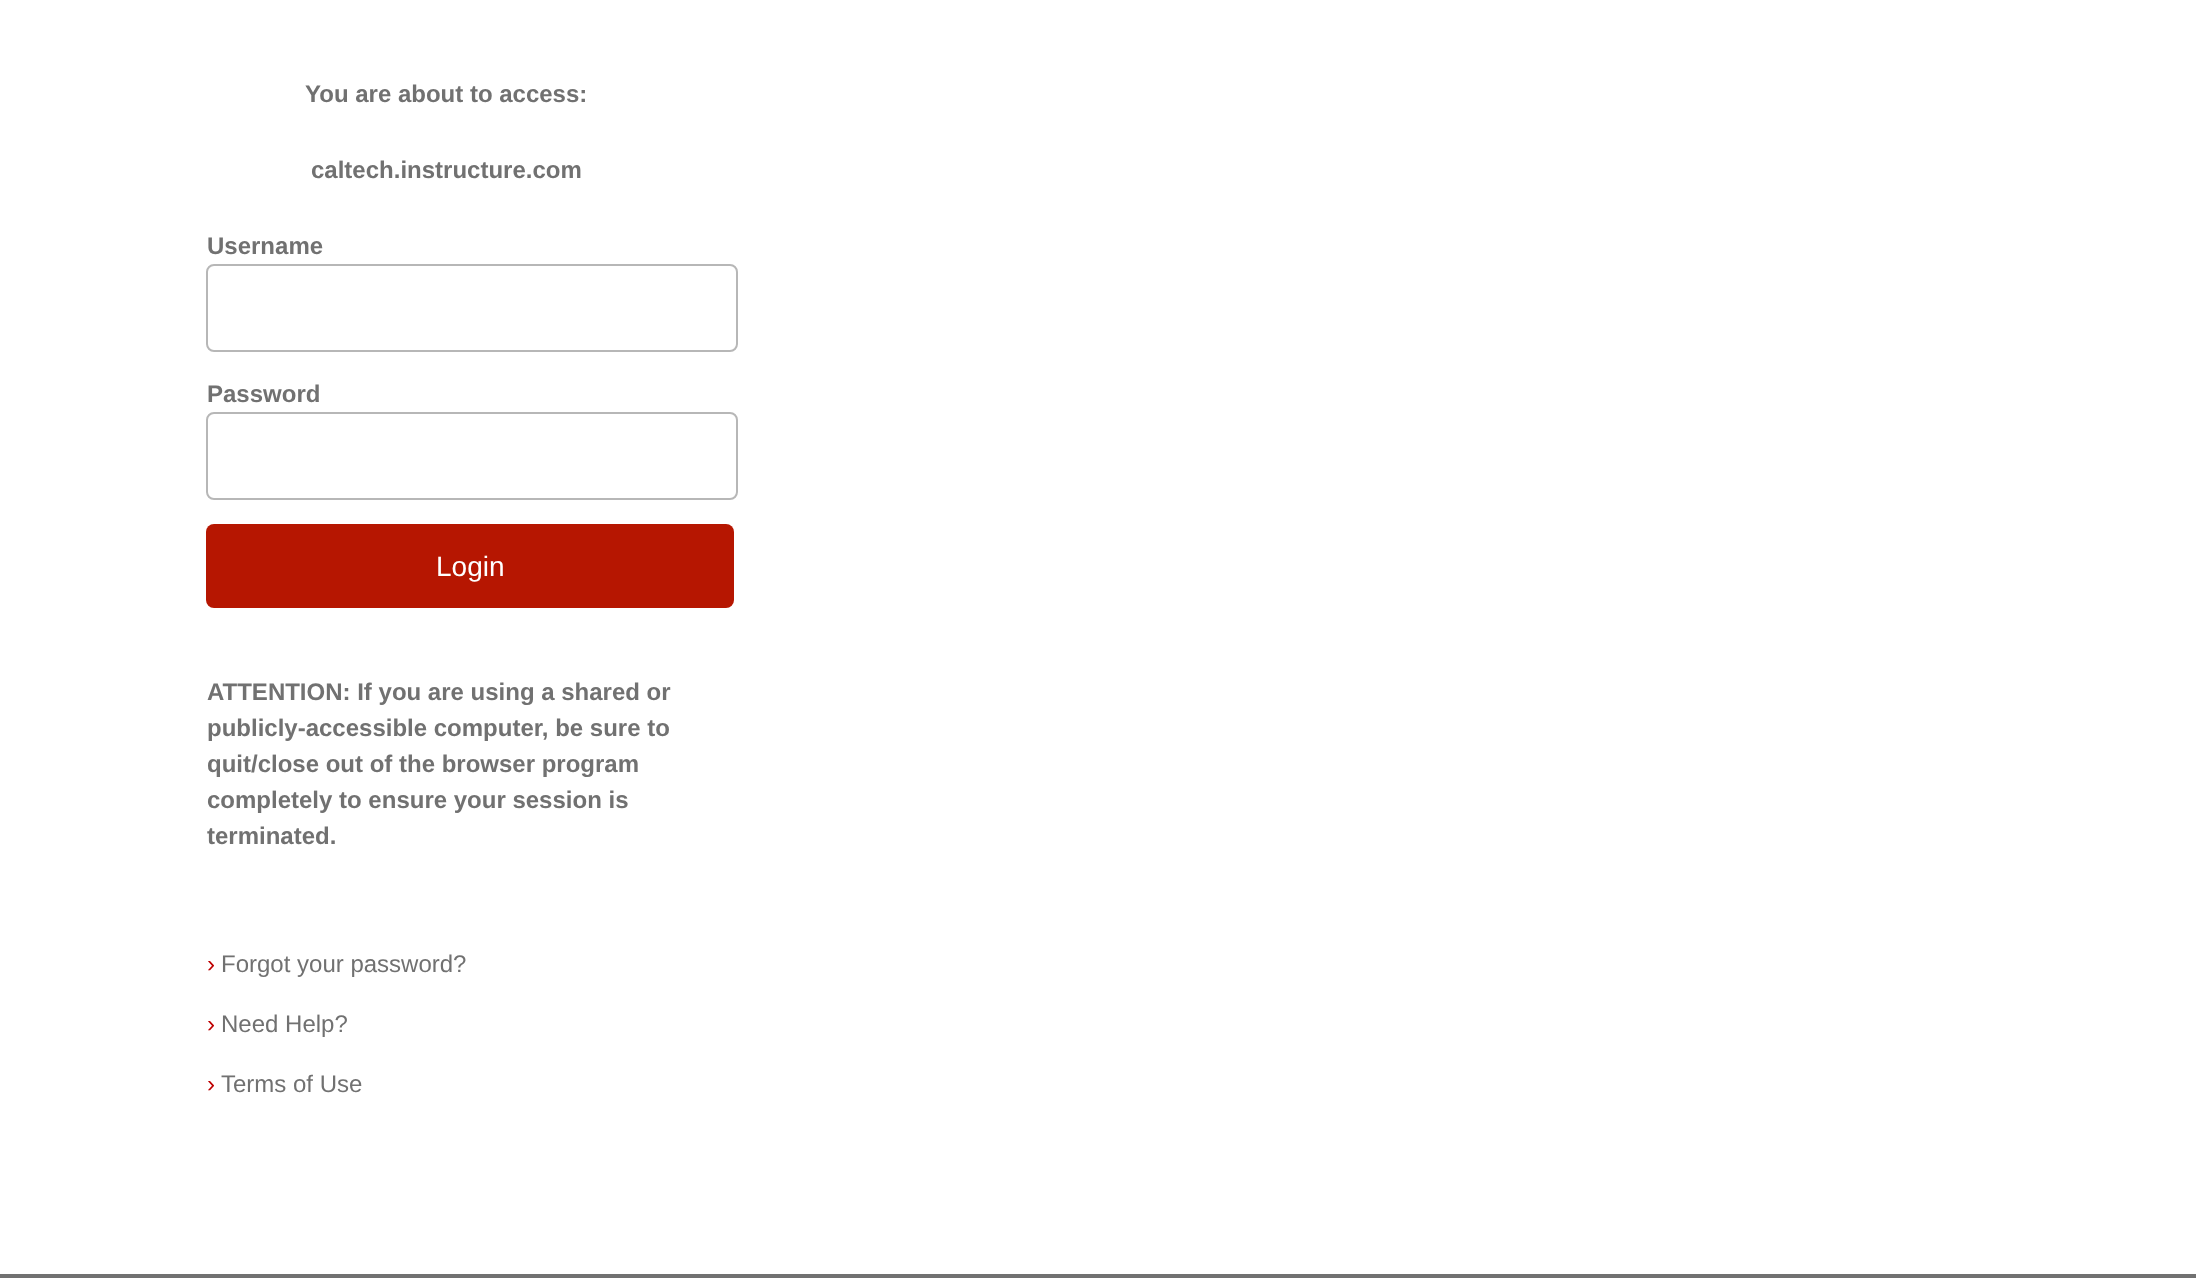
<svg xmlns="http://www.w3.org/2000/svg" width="2196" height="1278">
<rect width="100%" height="100%" fill="#fff"/>
<text x="305" y="102" style="font-family:Liberation Sans;font-size:24px;font-weight:bold;fill:#717171">You are about to access:</text>
<text x="311" y="178" style="font-family:Liberation Sans;font-size:24px;font-weight:bold;fill:#717171">caltech.instructure.com</text>
<text x="207" y="254" style="font-family:Liberation Sans;font-size:24px;font-weight:bold;fill:#717171">Username</text>
<rect x="207" y="265" width="530" height="86" rx="7" fill="none" stroke="#b7b7b7" stroke-width="2"/>
<text x="207" y="402" style="font-family:Liberation Sans;font-size:24px;font-weight:bold;fill:#717171">Password</text>
<rect x="207" y="413" width="530" height="86" rx="7" fill="none" stroke="#b7b7b7" stroke-width="2"/>
<rect x="206" y="524" width="528" height="84" rx="8" fill="#b61601"/>
<text x="436" y="576" style="font-family:Liberation Sans;font-size:28px;fill:#fff">Login</text>
<text x="207" y="700" style="font-family:Liberation Sans;font-size:24px;font-weight:bold;fill:#717171">ATTENTION: If you are using a shared or</text>
<text x="207" y="736" style="font-family:Liberation Sans;font-size:24px;font-weight:bold;fill:#717171">publicly-accessible computer, be sure to</text>
<text x="207" y="772" style="font-family:Liberation Sans;font-size:24px;font-weight:bold;fill:#717171">quit/close out of the browser program</text>
<text x="207" y="808" style="font-family:Liberation Sans;font-size:24px;font-weight:bold;fill:#717171">completely to ensure your session is</text>
<text x="207" y="844" style="font-family:Liberation Sans;font-size:24px;font-weight:bold;fill:#717171">terminated.</text>
<text x="207" y="972" style="font-family:Liberation Sans;font-size:24px;fill:#be0000">›</text>
<text x="221" y="972" style="font-family:Liberation Sans;font-size:24px;fill:#717171">Forgot your password?</text>
<text x="207" y="1032" style="font-family:Liberation Sans;font-size:24px;fill:#be0000">›</text>
<text x="221" y="1032" style="font-family:Liberation Sans;font-size:24px;fill:#717171">Need Help?</text>
<text x="207" y="1092" style="font-family:Liberation Sans;font-size:24px;fill:#be0000">›</text>
<text x="221" y="1092" style="font-family:Liberation Sans;font-size:24px;fill:#717171">Terms of Use</text>
<rect y="1274" width="2196" height="4" fill="#717171"/>
</svg>
